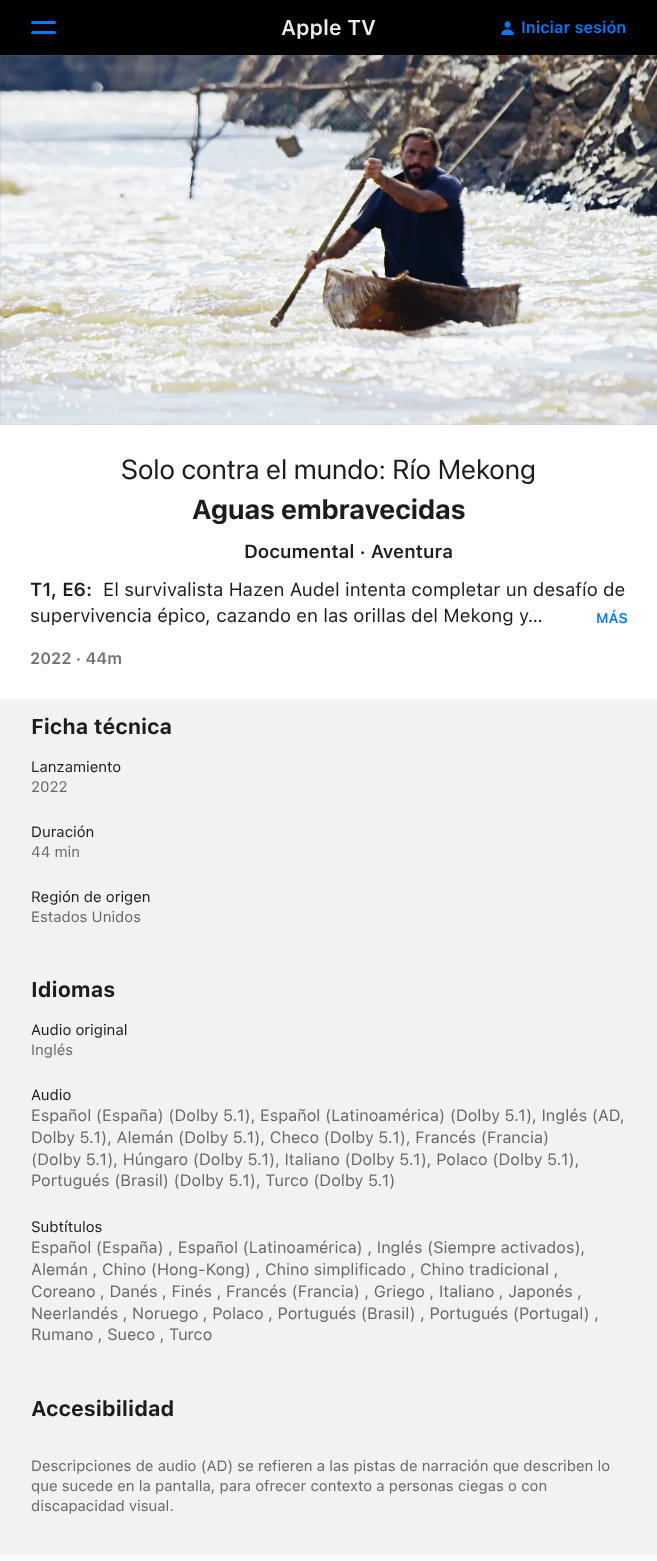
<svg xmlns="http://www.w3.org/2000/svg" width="657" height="1561">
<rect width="100%" height="100%" fill="#fff"/>
<rect width="657" height="55" fill="#000"/>
<rect x="31" y="21" width="25" height="3" rx="1.5" fill="#007aff"/>
<rect x="31" y="31" width="25" height="3" rx="1.5" fill="#007aff"/>
<text x="281" y="35" style="font-family:SF;font-size:21.25px;font-weight:600;fill:#ebebeb">Apple TV</text>
<image x="501" y="21" width="13" height="14" href="media/1.png"/>
<text x="521" y="33" style="font-family:SF;font-size:16.25px;font-weight:600;fill:#007aff">Iniciar sesión</text>
<image x="0" y="55" width="657" height="370" href="media/2.png"/>
<rect x="0.5" y="55.5" width="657" height="369" fill="none" stroke="#8080801a"/>
<text x="121" y="479" style="font-family:'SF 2';font-size:27.5px;fill:#1d1d1d">Solo contra el mundo: Río Mekong</text>
<text x="192" y="519" style="font-family:'SF 2';font-size:27.5px;font-weight:bold;fill:#1d1d1d">Aguas embravecidas</text>
<text x="244" y="558" style="font-family:SF;font-size:18.75px;font-weight:600;fill:#1d1d1d">Documental · Aventura</text>
<text x="30" y="596" style="font-family:SF;font-size:18.75px;font-weight:600;fill:#1d1d1d">T1, E6:</text>
<text x="103" y="596" style="font-family:SF;font-size:18.75px;fill:#1d1d1d">El survivalista Hazen Audel intenta completar un desafío de</text>
<text x="30" y="622" style="font-family:SF;font-size:18.75px;fill:#1d1d1d">supervivencia épico, cazando en las orillas del Mekong y…</text>
<text x="596" y="623" style="font-family:SF;font-size:14px;font-weight:600;fill:#007aff">MÁS</text>
<text x="30" y="664" style="font-family:SF;font-size:16.25px;font-weight:600;fill:#707070">2022 · 44m</text>
<rect y="699" width="657" height="855" fill="#f2f2f2"/>
<text x="31" y="734" style="font-family:SF;font-size:21.25px;font-weight:bold;fill:#1d1d1d">Ficha técnica</text>
<text x="31" y="772" style="font-family:SF;font-size:15px;fill:#1d1d1d">Lanzamiento</text>
<text x="31" y="792" style="font-family:SF;font-size:15px;fill:#6a6a6a">2022</text>
<text x="31" y="837" style="font-family:SF;font-size:15px;fill:#1d1d1d">Duración</text>
<text x="31" y="857" style="font-family:SF;font-size:15px;fill:#6a6a6a">44 min</text>
<text x="31" y="902" style="font-family:SF;font-size:15px;fill:#1d1d1d">Región de origen</text>
<text x="31" y="922" style="font-family:SF;font-size:15px;fill:#6a6a6a">Estados Unidos</text>
<text x="31" y="997" style="font-family:SF;font-size:21.25px;font-weight:bold;fill:#1d1d1d">Idiomas</text>
<text x="31" y="1035" style="font-family:SF;font-size:15px;fill:#1d1d1d">Audio original</text>
<text x="31" y="1055" style="font-family:SF;font-size:15px;fill:#6a6a6a">Inglés</text>
<text x="31" y="1100" style="font-family:SF;font-size:15px;fill:#1d1d1d">Audio</text>
<text x="31" y="1121" style="font-family:SF;font-size:16.25px;fill:#6a6a6a">Español (España) (Dolby 5.1), Español (Latinoamérica) (Dolby 5.1), Inglés (AD,</text>
<text x="31" y="1143" style="font-family:SF;font-size:16.25px;fill:#6a6a6a">Dolby 5.1), Alemán (Dolby 5.1), Checo (Dolby 5.1), Francés (Francia)</text>
<text x="31" y="1165" style="font-family:SF;font-size:16.25px;fill:#6a6a6a">(Dolby 5.1), Húngaro (Dolby 5.1), Italiano (Dolby 5.1), Polaco (Dolby 5.1),</text>
<text x="31" y="1186" style="font-family:SF;font-size:16.25px;fill:#6a6a6a">Portugués (Brasil) (Dolby 5.1), Turco (Dolby 5.1)</text>
<text x="31" y="1232" style="font-family:SF;font-size:15px;fill:#1d1d1d">Subtítulos</text>
<text x="31" y="1253" style="font-family:SF;font-size:16.25px;fill:#6a6a6a">Español (España) , Español (Latinoamérica) , Inglés (Siempre activados),</text>
<text x="31" y="1275" style="font-family:SF;font-size:16.25px;fill:#6a6a6a">Alemán , Chino (Hong-Kong) , Chino simplificado , Chino tradicional ,</text>
<text x="31" y="1297" style="font-family:SF;font-size:16.25px;fill:#6a6a6a">Coreano , Danés , Finés , Francés (Francia) , Griego , Italiano , Japonés ,</text>
<text x="31" y="1319" style="font-family:SF;font-size:16.25px;fill:#6a6a6a">Neerlandés , Noruego , Polaco , Portugués (Brasil) , Portugués (Portugal) ,</text>
<text x="31" y="1340" style="font-family:SF;font-size:16.25px;fill:#6a6a6a">Rumano , Sueco , Turco</text>
<text x="31" y="1416" style="font-family:SF;font-size:21.25px;font-weight:bold;fill:#1d1d1d">Accesibilidad</text>
<text x="31" y="1471" style="font-family:SF;font-size:15px;fill:#6a6a6a">Descripciones de audio (AD) se refieren a las pistas de narración que describen lo</text>
<text x="31" y="1491" style="font-family:SF;font-size:15px;fill:#6a6a6a">que sucede en la pantalla, para ofrecer contexto a personas ciegas o con</text>
<text x="31" y="1511" style="font-family:SF;font-size:15px;fill:#6a6a6a">discapacidad visual.</text>
<rect y="1554" width="657" height="7" fill="#fbfbfb"/>
</svg>
